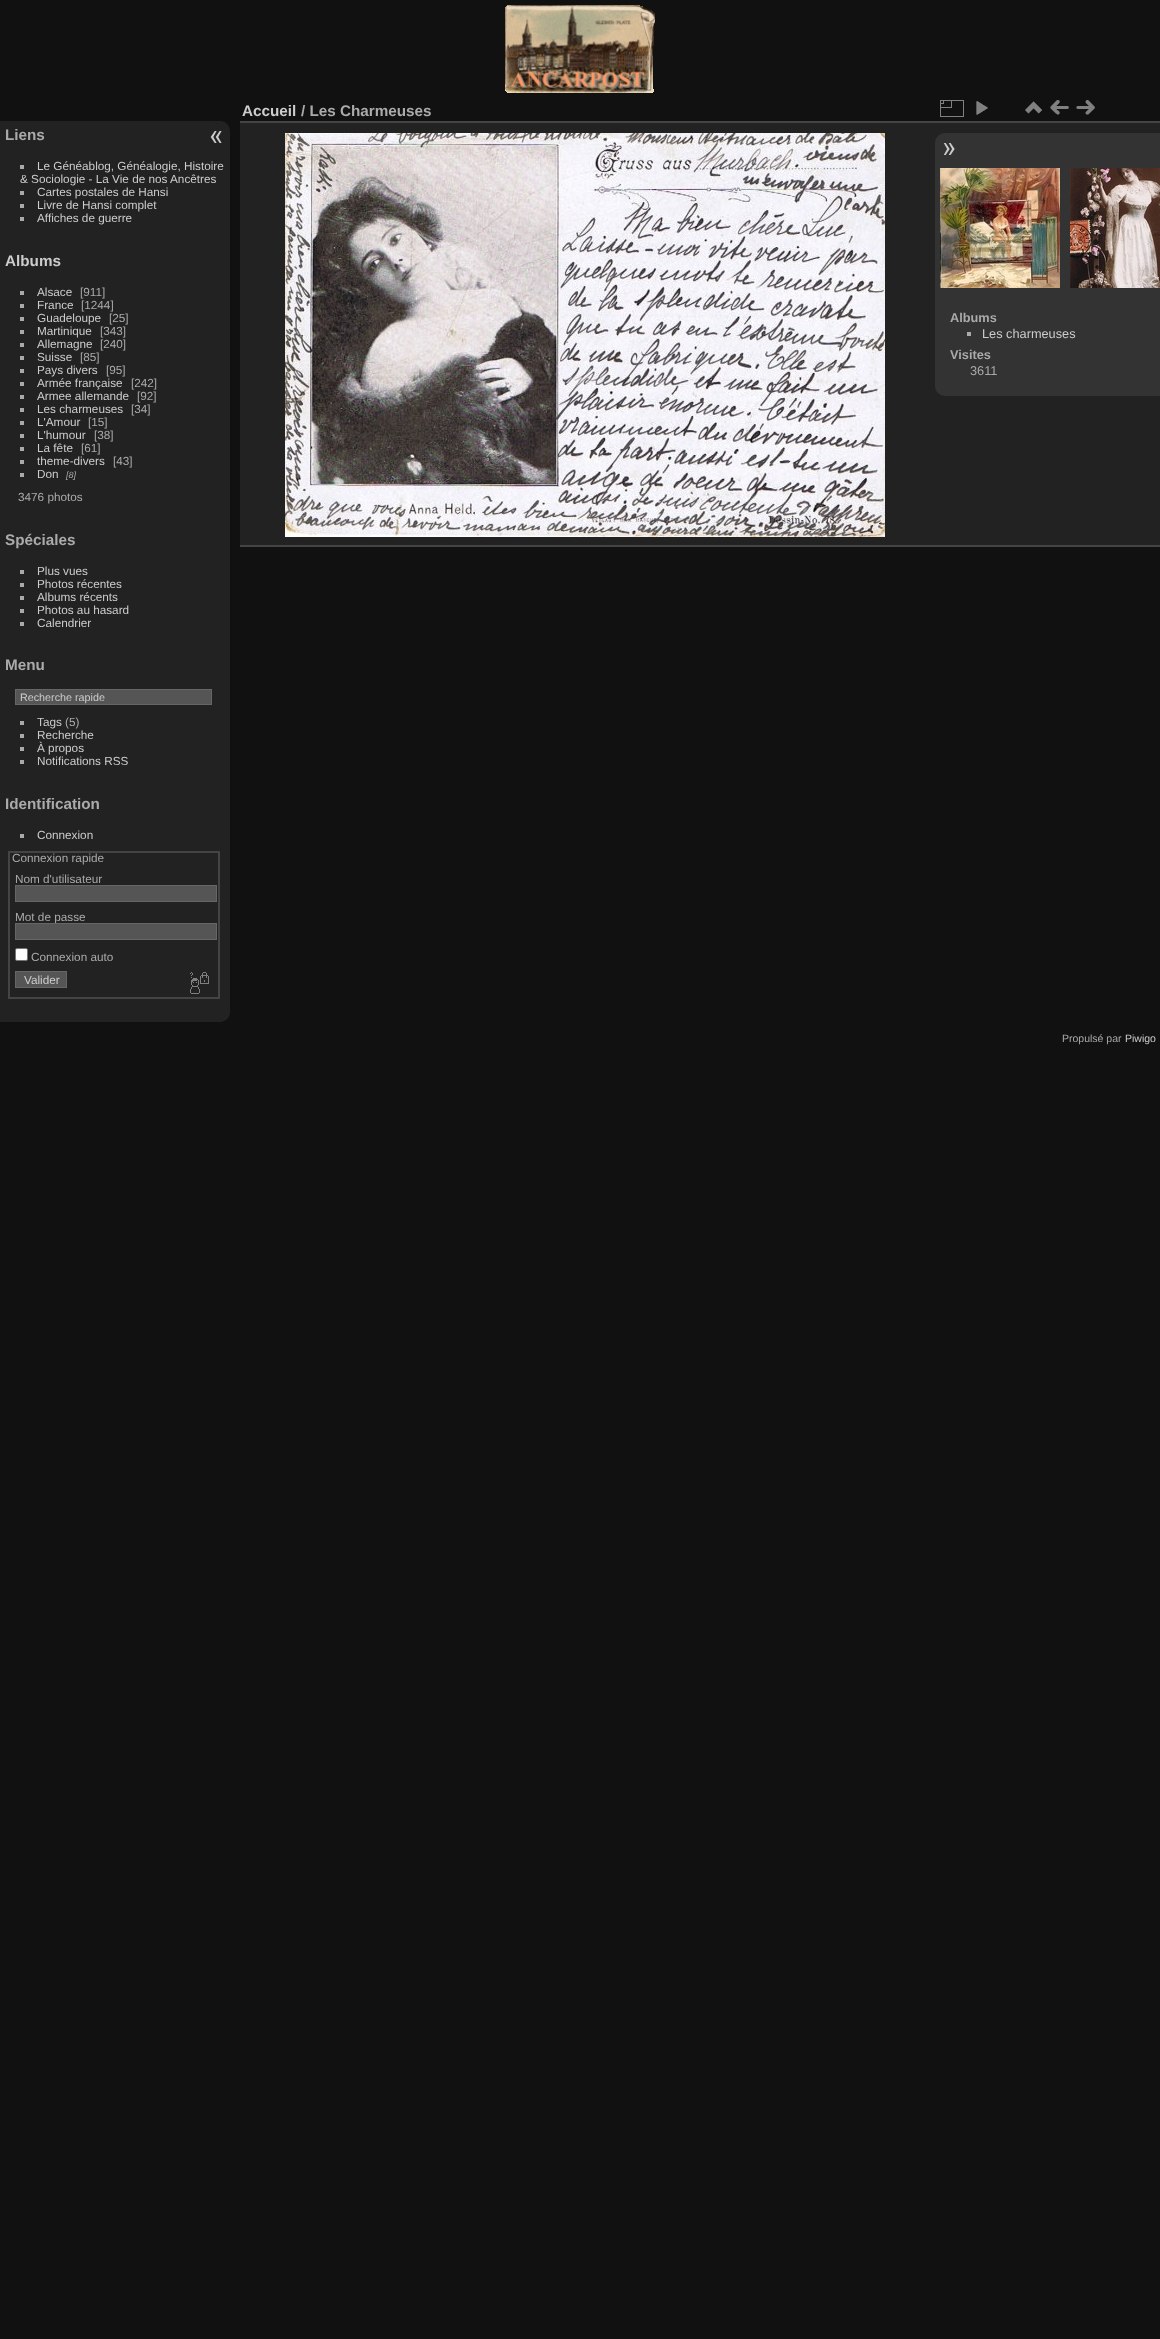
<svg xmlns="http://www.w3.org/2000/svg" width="1160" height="2339">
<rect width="100%" height="100%" fill="#111"/>
<image x="505" y="5" width="150" height="88" href="media/1.png"/>
<path d="M0 121h220c5.5 0 10 4.5 10 10v881c0 5.5-4.5 10-10 10h-220z" fill="#222"/>
<text x="5" y="140" style="font-family:Liberation Sans;font-size:15.25px;font-weight:bold;fill:#aaa">Liens</text>
<rect x="20" y="165" width="4" height="4" fill="#aaa"/>
<text x="37" y="170" style="font-family:Liberation Sans;font-size:11.75px;fill:#ccc">Le Généablog, Généalogie, Histoire</text>
<text x="20" y="183" style="font-family:Liberation Sans;font-size:11.75px;fill:#ccc">&amp; Sociologie - La Vie de nos Ancêtres</text>
<rect x="20" y="191" width="4" height="4" fill="#aaa"/>
<text x="37" y="196" style="font-family:Liberation Sans;font-size:11.75px;fill:#ccc">Cartes postales de Hansi</text>
<rect x="20" y="204" width="4" height="4" fill="#aaa"/>
<text x="37" y="209" style="font-family:Liberation Sans;font-size:11.75px;fill:#ccc">Livre de Hansi complet</text>
<rect x="20" y="217" width="4" height="4" fill="#aaa"/>
<text x="37" y="222" style="font-family:Liberation Sans;font-size:11.75px;fill:#ccc">Affiches de guerre</text>
<text x="5" y="266" style="font-family:Liberation Sans;font-size:15.25px;font-weight:bold;fill:#ccc">Albums</text>
<rect x="20" y="291" width="4" height="4" fill="#aaa"/>
<text x="37" y="296" style="font-family:Liberation Sans;font-size:11.75px;fill:#ccc">Alsace</text>
<text x="80" y="296" style="font-family:Liberation Sans;font-size:11.75px;fill:#aaa">[911]</text>
<rect x="20" y="304" width="4" height="4" fill="#aaa"/>
<text x="37" y="309" style="font-family:Liberation Sans;font-size:11.75px;fill:#ccc">France</text>
<text x="81" y="309" style="font-family:Liberation Sans;font-size:11.75px;fill:#aaa">[1244]</text>
<rect x="20" y="317" width="4" height="4" fill="#aaa"/>
<text x="37" y="322" style="font-family:Liberation Sans;font-size:11.75px;fill:#ccc">Guadeloupe</text>
<text x="109" y="322" style="font-family:Liberation Sans;font-size:11.75px;fill:#aaa">[25]</text>
<rect x="20" y="330" width="4" height="4" fill="#aaa"/>
<text x="37" y="335" style="font-family:Liberation Sans;font-size:11.75px;fill:#ccc">Martinique</text>
<text x="100" y="335" style="font-family:Liberation Sans;font-size:11.75px;fill:#aaa">[343]</text>
<rect x="20" y="343" width="4" height="4" fill="#aaa"/>
<text x="37" y="348" style="font-family:Liberation Sans;font-size:11.75px;fill:#ccc">Allemagne</text>
<text x="100" y="348" style="font-family:Liberation Sans;font-size:11.75px;fill:#aaa">[240]</text>
<rect x="20" y="356" width="4" height="4" fill="#aaa"/>
<text x="37" y="361" style="font-family:Liberation Sans;font-size:11.75px;fill:#ccc">Suisse</text>
<text x="80" y="361" style="font-family:Liberation Sans;font-size:11.75px;fill:#aaa">[85]</text>
<rect x="20" y="369" width="4" height="4" fill="#aaa"/>
<text x="37" y="374" style="font-family:Liberation Sans;font-size:11.75px;fill:#ccc">Pays divers</text>
<text x="106" y="374" style="font-family:Liberation Sans;font-size:11.75px;fill:#aaa">[95]</text>
<rect x="20" y="382" width="4" height="4" fill="#aaa"/>
<text x="37" y="387" style="font-family:Liberation Sans;font-size:11.75px;fill:#ccc">Armée française</text>
<text x="131" y="387" style="font-family:Liberation Sans;font-size:11.75px;fill:#aaa">[242]</text>
<rect x="20" y="395" width="4" height="4" fill="#aaa"/>
<text x="37" y="400" style="font-family:Liberation Sans;font-size:11.75px;fill:#ccc">Armee allemande</text>
<text x="137" y="400" style="font-family:Liberation Sans;font-size:11.75px;fill:#aaa">[92]</text>
<rect x="20" y="408" width="4" height="4" fill="#aaa"/>
<text x="37" y="413" style="font-family:Liberation Sans;font-size:11.75px;fill:#ccc">Les charmeuses</text>
<text x="131" y="413" style="font-family:Liberation Sans;font-size:11.75px;fill:#aaa">[34]</text>
<rect x="20" y="421" width="4" height="4" fill="#aaa"/>
<text x="37" y="426" style="font-family:Liberation Sans;font-size:11.75px;fill:#ccc">L'Amour</text>
<text x="88" y="426" style="font-family:Liberation Sans;font-size:11.75px;fill:#aaa">[15]</text>
<rect x="20" y="434" width="4" height="4" fill="#aaa"/>
<text x="37" y="439" style="font-family:Liberation Sans;font-size:11.75px;fill:#ccc">L'humour</text>
<text x="94" y="439" style="font-family:Liberation Sans;font-size:11.75px;fill:#aaa">[38]</text>
<rect x="20" y="447" width="4" height="4" fill="#aaa"/>
<text x="37" y="452" style="font-family:Liberation Sans;font-size:11.75px;fill:#ccc">La fête</text>
<text x="81" y="452" style="font-family:Liberation Sans;font-size:11.75px;fill:#aaa">[61]</text>
<rect x="20" y="460" width="4" height="4" fill="#aaa"/>
<text x="37" y="465" style="font-family:Liberation Sans;font-size:11.75px;fill:#ccc">theme-divers</text>
<text x="113" y="465" style="font-family:Liberation Sans;font-size:11.75px;fill:#aaa">[43]</text>
<rect x="20" y="473" width="4" height="4" fill="#aaa"/>
<text x="37" y="478" style="font-family:Liberation Sans;font-size:11.75px;fill:#ccc">Don</text>
<text x="66" y="478" style="font-family:Liberation Sans;font-size:9px;font-style:italic;fill:#aaa">[8]</text>
<text x="18" y="501" style="font-family:Liberation Sans;font-size:11.75px;fill:#aaa">3476 photos</text>
<text x="5" y="545" style="font-family:Liberation Sans;font-size:15.25px;font-weight:bold;fill:#aaa">Spéciales</text>
<rect x="20" y="570" width="4" height="4" fill="#aaa"/>
<text x="37" y="575" style="font-family:Liberation Sans;font-size:11.75px;fill:#ccc">Plus vues</text>
<rect x="20" y="583" width="4" height="4" fill="#aaa"/>
<text x="37" y="588" style="font-family:Liberation Sans;font-size:11.75px;fill:#ccc">Photos récentes</text>
<rect x="20" y="596" width="4" height="4" fill="#aaa"/>
<text x="37" y="601" style="font-family:Liberation Sans;font-size:11.75px;fill:#ccc">Albums récents</text>
<rect x="20" y="609" width="4" height="4" fill="#aaa"/>
<text x="37" y="614" style="font-family:Liberation Sans;font-size:11.75px;fill:#ccc">Photos au hasard</text>
<rect x="20" y="622" width="4" height="4" fill="#aaa"/>
<text x="37" y="627" style="font-family:Liberation Sans;font-size:11.75px;fill:#ccc">Calendrier</text>
<text x="5" y="670" style="font-family:Liberation Sans;font-size:15.25px;font-weight:bold;fill:#aaa">Menu</text>
<rect x="15.5" y="689.5" width="196" height="15" fill="#555" stroke="#666"/>
<text x="20" y="701" style="font-family:Liberation Sans;font-size:10.75px;fill:#ccc">Recherche rapide</text>
<rect x="20" y="721" width="4" height="4" fill="#aaa"/>
<text x="37" y="726" style="font-family:Liberation Sans;font-size:11.75px;fill:#ccc">Tags</text>
<text x="65" y="726" style="font-family:Liberation Sans;font-size:11.75px;fill:#aaa">(5)</text>
<rect x="20" y="734" width="4" height="4" fill="#aaa"/>
<text x="37" y="739" style="font-family:Liberation Sans;font-size:11.75px;fill:#ccc">Recherche</text>
<rect x="20" y="747" width="4" height="4" fill="#aaa"/>
<text x="37" y="752" style="font-family:Liberation Sans;font-size:11.75px;fill:#ccc">À propos</text>
<rect x="20" y="760" width="4" height="4" fill="#aaa"/>
<text x="37" y="765" style="font-family:Liberation Sans;font-size:11.75px;fill:#ccc">Notifications RSS</text>
<text x="5" y="809" style="font-family:Liberation Sans;font-size:15.25px;font-weight:bold;fill:#aaa">Identification</text>
<rect x="20" y="834" width="4" height="4" fill="#aaa"/>
<text x="37" y="839" style="font-family:Liberation Sans;font-size:11.75px;fill:#ccc">Connexion</text>
<rect x="9" y="852" width="210" height="146" fill="none" stroke="#444" stroke-width="2"/>
<text x="12" y="862" style="font-family:Liberation Sans;font-size:11.75px;fill:#aaa">Connexion rapide</text>
<text x="15" y="883" style="font-family:Liberation Sans;font-size:11.75px;fill:#aaa">Nom d'utilisateur</text>
<rect x="15.5" y="885.5" width="201" height="16" fill="#555" stroke="#666"/>
<text x="15" y="921" style="font-family:Liberation Sans;font-size:11.75px;fill:#aaa">Mot de passe</text>
<rect x="15.5" y="923.5" width="201" height="16" fill="#555" stroke="#666"/>
<rect x="15.5" y="948.5" width="12" height="12" rx="1.5" fill="#fff" stroke="#767676"/>
<text x="31" y="961" style="font-family:Liberation Sans;font-size:11.75px;fill:#aaa">Connexion auto</text>
<rect x="15.5" y="971.5" width="51" height="16" fill="#555" stroke="#666"/>
<text x="24" y="984" style="font-family:Liberation Sans;font-size:11.75px;fill:#ccc">Valider</text>
<image x="190" y="972" width="19" height="22" href="media/2.png"/>
<rect x="240" y="123" width="920" height="422" fill="#222"/>
<rect x="240" y="545" width="920" height="2" fill="#444"/>
<rect x="240" y="121" width="920" height="2" fill="#444"/>
<text x="242" y="116" style="font-family:Liberation Sans;font-size:15.25px;font-weight:bold;fill:#ccc">Accueil</text>
<text x="301" y="116" style="font-family:Liberation Sans;font-size:15.25px;font-weight:bold;fill:#aaa">/ Les Charmeuses</text>
<image x="940" y="100" width="24" height="17" href="media/3.png"/>
<image x="976" y="101" width="12" height="14" href="media/4.png"/>
<image x="1025" y="101" width="17" height="13" href="media/5.png"/>
<image x="1050" y="100" width="19" height="15" href="media/6.png"/>
<image x="1076" y="100" width="19" height="15" href="media/7.png"/>
<image x="285" y="133" width="600" height="404" href="media/8.png"/>
<path d="M945 133h215v263h-215c-5.5 0-10-4.5-10-10v-243c0-5.5 4.5-10 10-10z" fill="#333"/>
<image x="943" y="143" width="12" height="12" href="media/9.png"/>
<image x="940" y="168" width="120" height="120" href="media/10.png"/>
<image x="1070" y="168" width="90" height="120" href="media/11.png"/>
<text x="950" y="322" style="font-family:Liberation Sans;font-size:12.75px;font-weight:bold;fill:#aaa">Albums</text>
<rect x="967" y="332" width="4" height="4" fill="#aaa"/>
<text x="982" y="338" style="font-family:Liberation Sans;font-size:12.75px;fill:#ccc">Les charmeuses</text>
<text x="950" y="359" style="font-family:Liberation Sans;font-size:12.75px;font-weight:bold;fill:#aaa">Visites</text>
<text x="970" y="375" style="font-family:Liberation Sans;font-size:12.75px;fill:#aaa">3611</text>
<image x="210" y="131" width="12" height="12" href="media/12.png"/>
<text x="1062" y="1042" style="font-family:Liberation Sans;font-size:10.5px;fill:#aaa">Propulsé par</text>
<text x="1125" y="1042" style="font-family:Liberation Sans;font-size:10.5px;fill:#ccc">Piwigo</text>
</svg>
